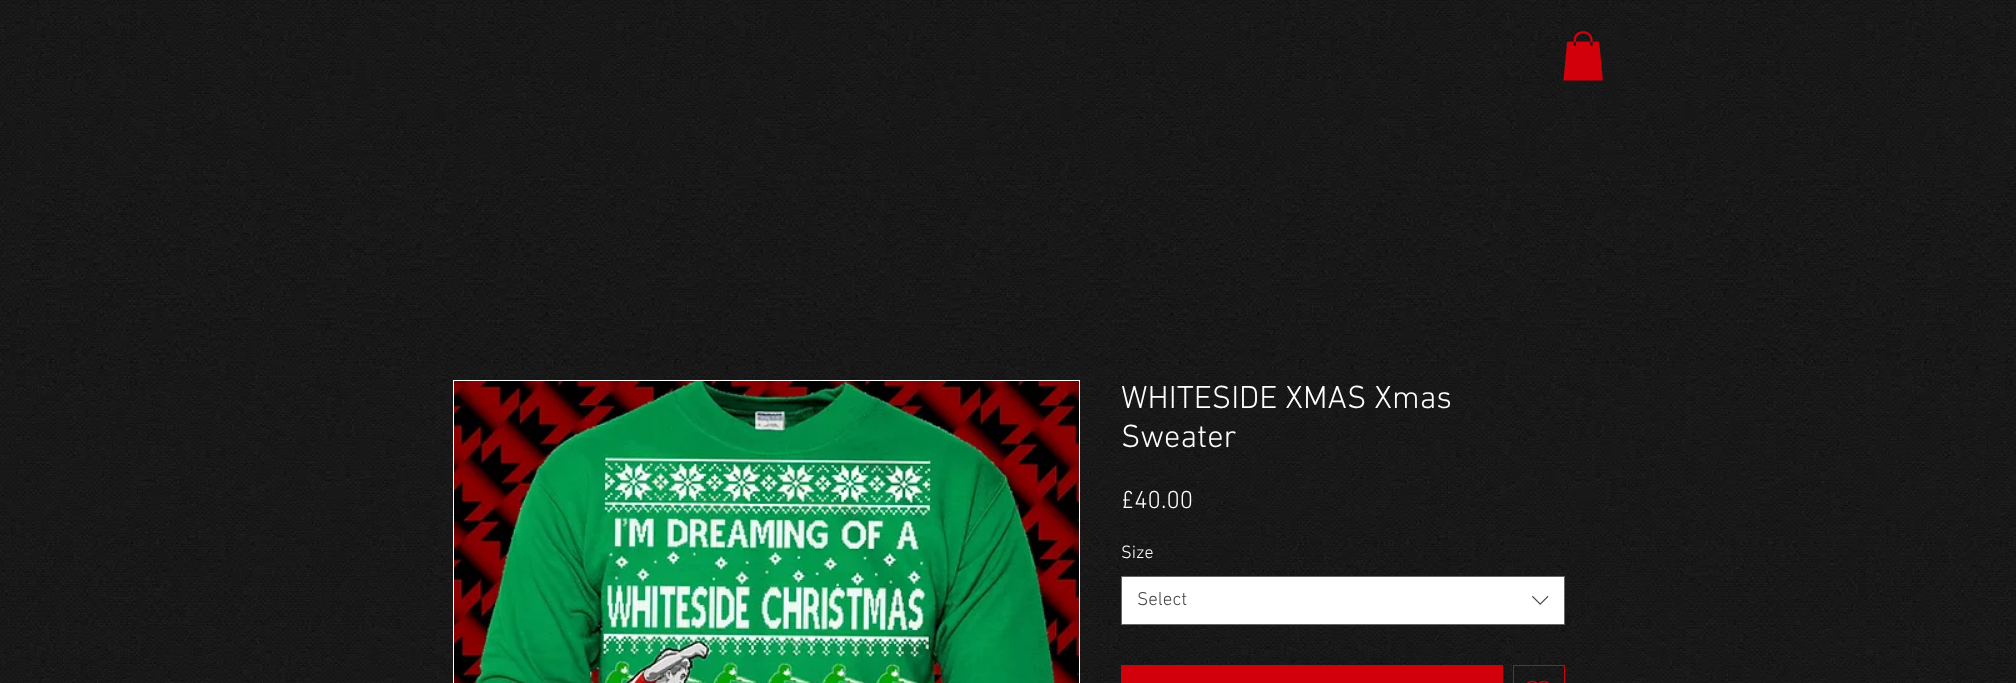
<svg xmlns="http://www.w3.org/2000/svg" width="2016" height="683">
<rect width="100%" height="100%" fill="#fff"/>
<image x="0" y="0" width="2016" height="683" href="media/1.png"/>
<image x="1563" y="31" width="40" height="50" href="media/2.png"/>
<rect x="453.5" y="380.5" width="626" height="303" fill="none" stroke="#fff"/>
<image x="454" y="381" width="625" height="302" href="media/3.png"/>
<text x="1121" y="408" style="font-family:'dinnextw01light';font-size:32.5px;font-weight:300;fill:#fff">WHITESIDE XMAS Xmas</text>
<text x="1121" y="447" style="font-family:'dinnextw01light';font-size:32.5px;font-weight:300;fill:#fff">Sweater</text>
<text x="1121" y="508" style="font-family:'dinnextw01light';font-size:25px;font-weight:300;fill:#fff">£40.00</text>
<text x="1121" y="558" style="font-family:'dinnextw01light';font-size:18px;font-weight:300;fill:#fff">Size</text>
<rect x="1121.5" y="576.5" width="443" height="48" fill="#fff" stroke="#666"/>
<text x="1137" y="605" style="font-family:'dinnextw01light';font-size:19px;font-weight:300;fill:#444">Select</text>
<image x="1532" y="595" width="17" height="10" href="media/4.png"/>
<rect x="1121" y="665" width="382" height="18" fill="#d1000a"/>
<rect x="1513.5" y="665.5" width="51" height="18" fill="none" stroke="#d1000a"/>
<image x="1527" y="680" width="22" height="3" href="media/5.png"/>
</svg>
